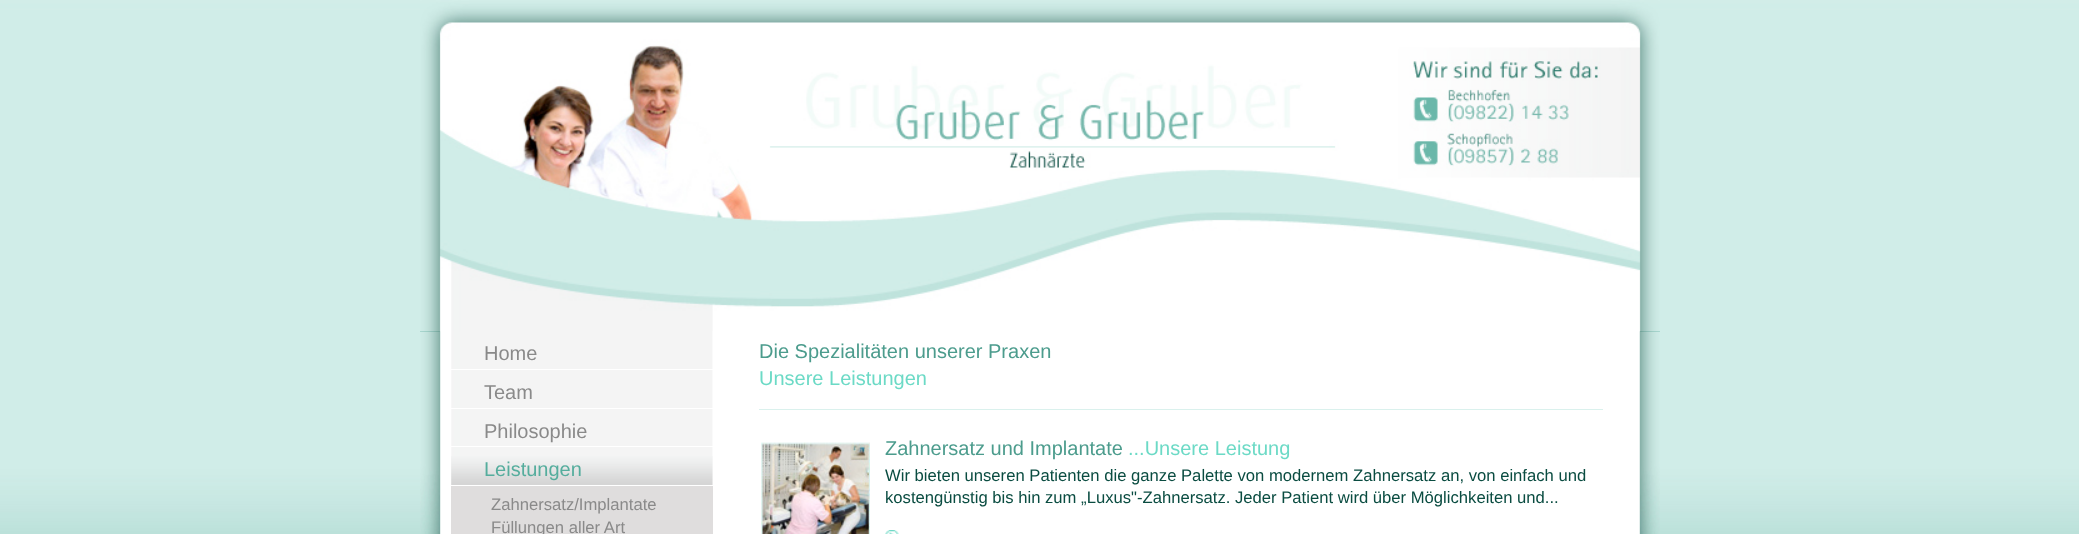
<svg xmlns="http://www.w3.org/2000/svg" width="2079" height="534">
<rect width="100%" height="100%" fill="#fff"/>
<image x="0" y="0" width="2079" height="534" href="media/1.png"/>
<image x="420" y="331" width="1240" height="203" href="media/2.png"/>
<image x="420" y="0" width="1240" height="332" href="media/3.png"/>
<image x="420" y="331" width="20" height="203" href="media/4.png"/>
<rect x="451" y="369" width="262" height="1" fill="#fff"/>
<text x="484" y="360" style="font-family:Liberation Sans;font-size:20px;fill:#8a8a8a">Home</text>
<rect x="451" y="408" width="262" height="1" fill="#fff"/>
<text x="484" y="399" style="font-family:Liberation Sans;font-size:20px;fill:#8a8a8a">Team</text>
<rect x="451" y="446" width="262" height="1" fill="#fff"/>
<text x="484" y="438" style="font-family:Liberation Sans;font-size:20px;fill:#8a8a8a">Philosophie</text>
<image x="451" y="456" width="262" height="29" href="media/5.png"/>
<rect x="451" y="485" width="262" height="1" fill="#fff"/>
<text x="484" y="476" style="font-family:Liberation Sans;font-size:20px;fill:#55ad9d">Leistungen</text>
<rect x="451" y="486" width="262" height="48" fill="#dfdddd"/>
<text x="491" y="510" style="font-family:Liberation Sans;font-size:16.65px;fill:#8a8a8a">Zahnersatz/Implantate</text>
<text x="491" y="533" style="font-family:Liberation Sans;font-size:16.65px;fill:#8a8a8a">Füllungen aller Art</text>
<text x="759" y="358" style="font-family:Liberation Sans;font-size:20px;fill:#4c9c8d">Die Spezialitäten unserer Praxen</text>
<text x="759" y="385" style="font-family:Liberation Sans;font-size:20px;fill:#6cdac6">Unsere Leistungen</text>
<rect x="759" y="409" width="844" height="1" fill="#daf1ed"/>
<image x="761" y="442" width="109" height="92" href="media/6.png"/>
<text x="885" y="455" style="font-family:Liberation Sans;font-size:20px;fill:#4c9c8d">Zahnersatz und Implantate</text>
<text x="1128" y="455" style="font-family:Liberation Sans;font-size:20px;fill:#6cdac6">...Unsere Leistung</text>
<text x="885" y="481" style="font-family:Liberation Sans;font-size:16.65px;fill:#0a4c41">Wir bieten unseren Patienten die ganze Palette von modernem Zahnersatz an, von einfach und</text>
<text x="885" y="503" style="font-family:Liberation Sans;font-size:16.65px;fill:#0a4c41">kostengünstig bis hin zum „Luxus"-Zahnersatz. Jeder Patient wird über Möglichkeiten und...</text>
<image x="885" y="530" width="14" height="4" href="media/7.png"/>
<image x="1640" y="331" width="20" height="203" href="media/8.png"/>
</svg>
